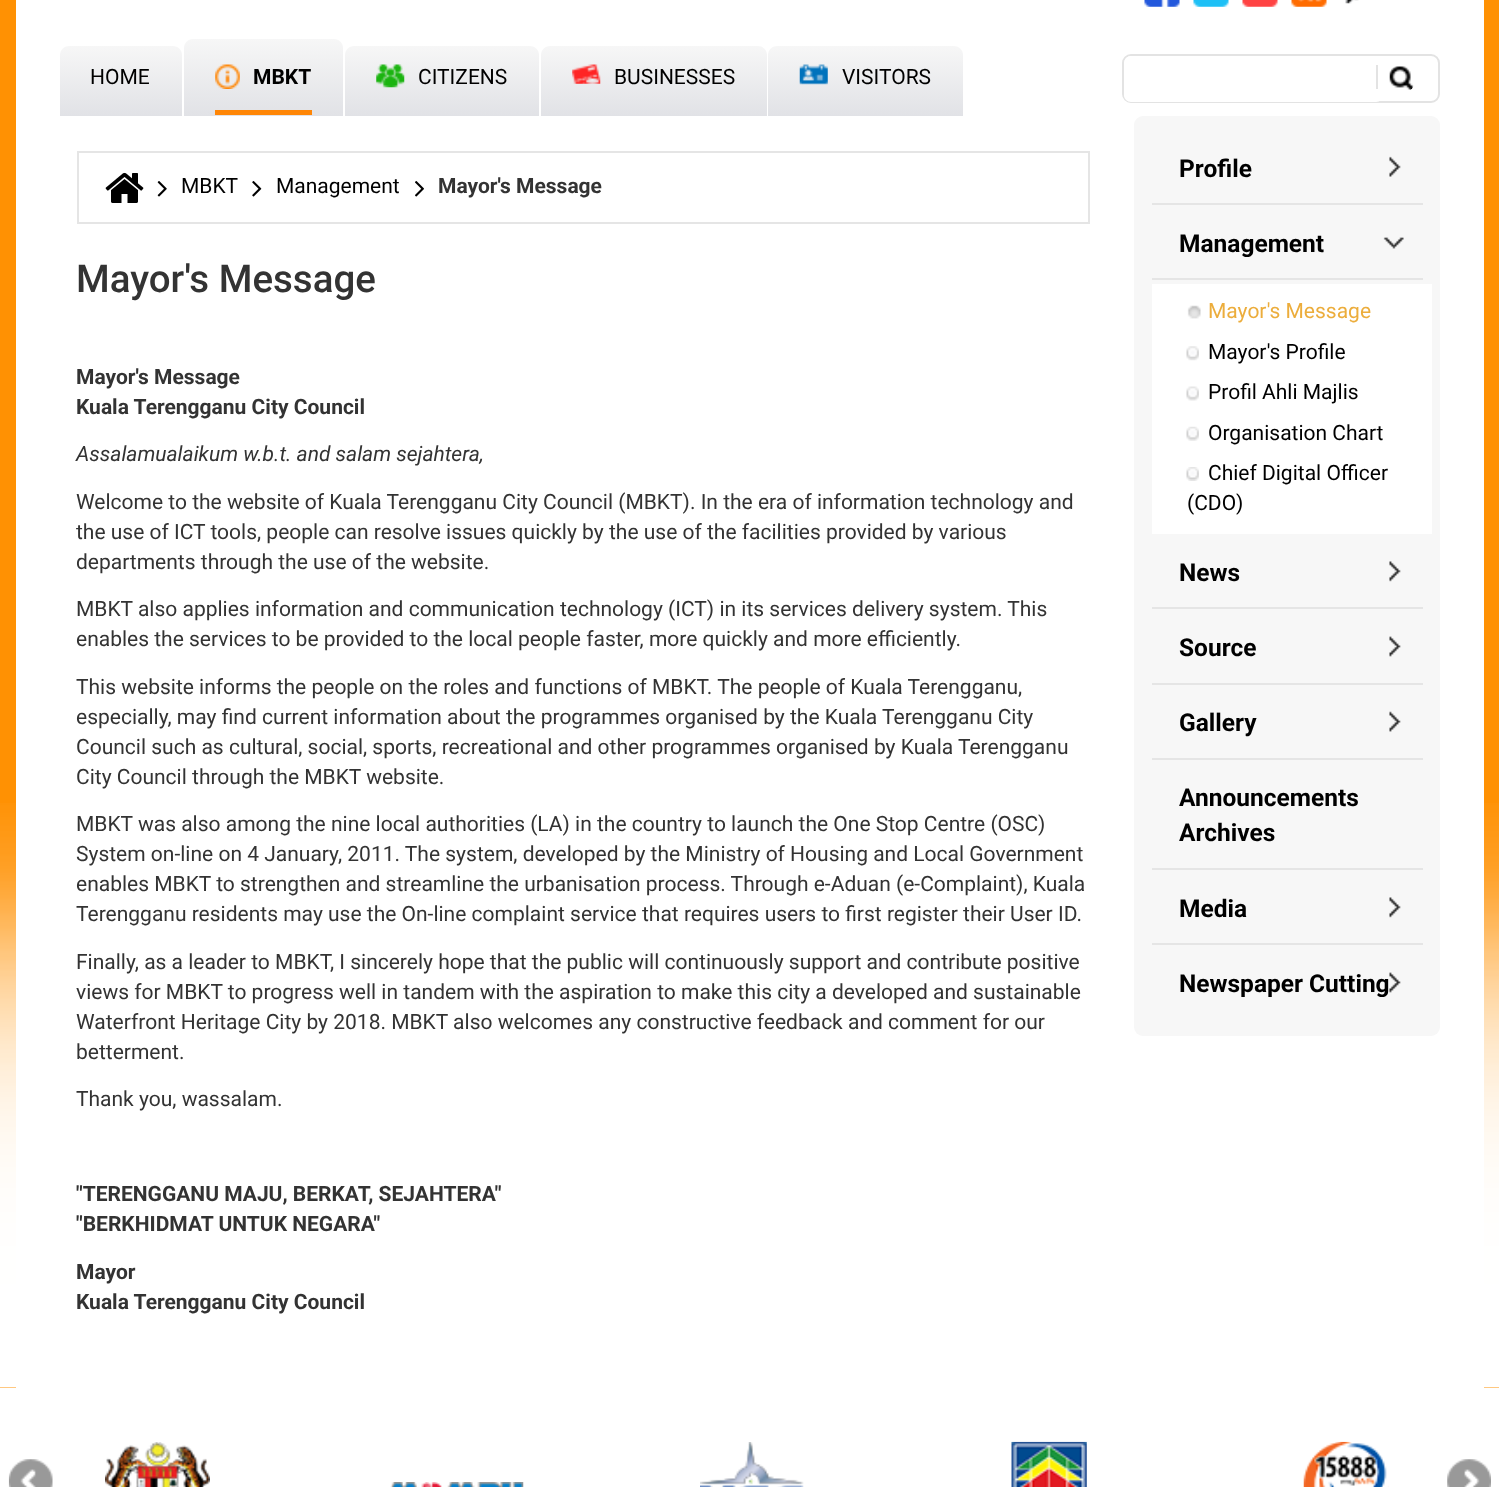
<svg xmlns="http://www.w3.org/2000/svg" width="1499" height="1487">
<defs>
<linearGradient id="g1" gradientUnits="userSpaceOnUse" x1="121" y1="45" x2="121" y2="116"><stop offset="0" stop-color="#f7f7f7"/><stop offset="1" stop-color="#e1e2e6"/></linearGradient>
<linearGradient id="g2" gradientUnits="userSpaceOnUse" x1="263" y1="38" x2="263" y2="116"><stop offset="0" stop-color="#f7f7f7"/><stop offset="1" stop-color="#e1e2e6"/></linearGradient>
<linearGradient id="g3" gradientUnits="userSpaceOnUse" x1="442" y1="45" x2="442" y2="116"><stop offset="0" stop-color="#f7f7f7"/><stop offset="1" stop-color="#e1e2e6"/></linearGradient>
<linearGradient id="g4" gradientUnits="userSpaceOnUse" x1="654" y1="45" x2="654" y2="116"><stop offset="0" stop-color="#f7f7f7"/><stop offset="1" stop-color="#e1e2e6"/></linearGradient>
<linearGradient id="g5" gradientUnits="userSpaceOnUse" x1="865" y1="45" x2="865" y2="116"><stop offset="0" stop-color="#f7f7f7"/><stop offset="1" stop-color="#e1e2e6"/></linearGradient>
</defs>
<rect width="100%" height="100%" fill="#fff"/>
<rect width="1499" height="1388" fill="#ff9103"/>
<image x="0" y="803" width="1499" height="585" href="media/25.png"/>
<rect x="16" width="1468" height="1388" fill="#fff"/>
<image x="1144" y="0" width="36" height="7" href="media/1.png"/>
<image x="1193" y="0" width="36" height="7" href="media/2.png"/>
<image x="1242" y="0" width="36" height="7" href="media/3.png"/>
<image x="1291" y="0" width="36" height="7" href="media/4.png"/>
<image x="1345" y="0" width="14" height="4" href="media/5.png"/>
<path d="M69 46h104c5 0 9 4 9 9v61h-122v-61c0-5 4-9 9-9z" fill="url(#g1)"/>
<text x="90" y="84" style="font-family:Roboto;font-size:21px;fill:#000">HOME</text>
<path d="M193 39h141c5 0 9 4 9 9v68h-159v-68c0-5 4-9 9-9z" fill="url(#g2)"/>
<image x="215" y="64" width="25" height="25" href="media/6.png"/>
<text x="253" y="84" style="font-family:Roboto;font-size:21px;font-weight:bold;fill:#000">MBKT</text>
<rect x="215" y="110" width="97" height="5" fill="#ff8606"/>
<path d="M354 46h176c5 0 9 4 9 9v61h-194v-61c0-5 4-9 9-9z" fill="url(#g3)"/>
<image x="376" y="64" width="29" height="24" href="media/7.png"/>
<text x="418" y="84" style="font-family:Roboto;font-size:21px;fill:#000">CITIZENS</text>
<path d="M550 46h208c5 0 9 4 9 9v61h-226v-61c0-5 4-9 9-9z" fill="url(#g4)"/>
<image x="572" y="64" width="29" height="20" href="media/8.png"/>
<text x="614" y="84" style="font-family:Roboto;font-size:21px;fill:#000">BUSINESSES</text>
<path d="M777 46h177c5 0 9 4 9 9v61h-195v-61c0-5 4-9 9-9z" fill="url(#g5)"/>
<image x="799" y="64" width="29" height="21" href="media/9.png"/>
<text x="842" y="84" style="font-family:Roboto;font-size:21px;fill:#000">VISITORS</text>
<rect x="1123" y="55" width="316" height="47" rx="8" fill="none" stroke="#e3e3e3" stroke-width="2"/>
<rect x="1124" y="56" width="259" height="46" rx="7" fill="#fff"/>
<rect x="1376" y="65" width="2" height="24" fill="#e3e3e3"/>
<image x="1389" y="66" width="25" height="24" href="media/10.png"/>
<rect x="78" y="152" width="1011" height="71" fill="none" stroke="#e5e5e5" stroke-width="2"/>
<image x="105" y="172" width="39" height="31" href="media/11.png"/>
<image x="157" y="181" width="10" height="16" href="media/12.png"/>
<text x="181" y="193" style="font-family:Roboto;font-size:21px;fill:#000">MBKT</text>
<image x="252" y="181" width="10" height="16" href="media/13.png"/>
<text x="276" y="193" style="font-family:Roboto;font-size:21px;fill:#000">Management</text>
<image x="415" y="181" width="9" height="16" href="media/14.png"/>
<text x="438" y="193" style="font-family:Roboto;font-size:21px;font-weight:bold;fill:#333">Mayor's Message</text>
<text x="76" y="292" style="font-family:Roboto;font-size:38.5px;font-weight:500;fill:#333">Mayor's Message</text>
<text x="76" y="384" style="font-family:Roboto;font-size:21px;font-weight:bold;fill:#333">Mayor's Message</text>
<text x="76" y="414" style="font-family:Roboto;font-size:21px;font-weight:bold;fill:#333">Kuala Terengganu City Council</text>
<text x="76" y="461" style="font-family:Roboto;font-size:21px;font-style:italic;fill:#333">Assalamualaikum w.b.t. and salam sejahtera,</text>
<text x="76" y="509" style="font-family:Roboto;font-size:21px;fill:#333">Welcome to the website of Kuala Terengganu City Council (MBKT). In the era of information technology and</text>
<text x="76" y="539" style="font-family:Roboto;font-size:21px;fill:#333">the use of ICT tools, people can resolve issues quickly by the use of the facilities provided by various</text>
<text x="76" y="569" style="font-family:Roboto;font-size:21px;fill:#333">departments through the use of the website.</text>
<text x="76" y="616" style="font-family:Roboto;font-size:21px;fill:#333">MBKT also applies information and communication technology (ICT) in its services delivery system. This</text>
<text x="76" y="646" style="font-family:Roboto;font-size:21px;fill:#333">enables the services to be provided to the local people faster, more quickly and more efficiently.</text>
<text x="76" y="694" style="font-family:Roboto;font-size:21px;fill:#333">This website informs the people on the roles and functions of MBKT. The people of Kuala Terengganu,</text>
<text x="76" y="724" style="font-family:Roboto;font-size:21px;fill:#333">especially, may find current information about the programmes organised by the Kuala Terengganu City</text>
<text x="76" y="754" style="font-family:Roboto;font-size:21px;fill:#333">Council such as cultural, social, sports, recreational and other programmes organised by Kuala Terengganu</text>
<text x="76" y="784" style="font-family:Roboto;font-size:21px;fill:#333">City Council through the MBKT website.</text>
<text x="76" y="831" style="font-family:Roboto;font-size:21px;fill:#333">MBKT was also among the nine local authorities (LA) in the country to launch the One Stop Centre (OSC)</text>
<text x="76" y="861" style="font-family:Roboto;font-size:21px;fill:#333">System on-line on 4 January, 2011. The system, developed by the Ministry of Housing and Local Government</text>
<text x="76" y="891" style="font-family:Roboto;font-size:21px;fill:#333">enables MBKT to strengthen and streamline the urbanisation process. Through e-Aduan (e-Complaint), Kuala</text>
<text x="76" y="921" style="font-family:Roboto;font-size:21px;fill:#333">Terengganu residents may use the On-line complaint service that requires users to first register their User ID.</text>
<text x="76" y="969" style="font-family:Roboto;font-size:21px;fill:#333">Finally, as a leader to MBKT, I sincerely hope that the public will continuously support and contribute positive</text>
<text x="76" y="999" style="font-family:Roboto;font-size:21px;fill:#333">views for MBKT to progress well in tandem with the aspiration to make this city a developed and sustainable</text>
<text x="76" y="1029" style="font-family:Roboto;font-size:21px;fill:#333">Waterfront Heritage City by 2018. MBKT also welcomes any constructive feedback and comment for our</text>
<text x="76" y="1059" style="font-family:Roboto;font-size:21px;fill:#333">betterment.</text>
<text x="76" y="1106" style="font-family:Roboto;font-size:21px;fill:#333">Thank you, wassalam.</text>
<text x="76" y="1201" style="font-family:Roboto;font-size:21px;font-weight:bold;fill:#333">"TERENGGANU MAJU, BERKAT, SEJAHTERA"</text>
<text x="76" y="1231" style="font-family:Roboto;font-size:21px;font-weight:bold;fill:#333">"BERKHIDMAT UNTUK NEGARA"</text>
<text x="76" y="1279" style="font-family:Roboto;font-size:21px;font-weight:bold;fill:#333">Mayor</text>
<text x="76" y="1309" style="font-family:Roboto;font-size:21px;font-weight:bold;fill:#333">Kuala Terengganu City Council</text>
<rect x="1134" y="116" width="306" height="920" rx="9" fill="#f7f7f7"/>
<rect x="1152" y="203" width="271" height="2" fill="#e5e5e5"/>
<text x="1179" y="177" style="font-family:Roboto;font-size:24.5px;font-weight:bold;fill:#000">Profile</text>
<image x="1389" y="156" width="12" height="21" href="media/15.png"/>
<rect x="1152" y="278" width="271" height="2" fill="#e5e5e5"/>
<text x="1179" y="252" style="font-family:Roboto;font-size:24.5px;font-weight:bold;fill:#000">Management</text>
<image x="1383" y="237" width="21" height="12" href="media/16.png"/>
<rect x="1152" y="284" width="280" height="250" fill="#fff"/>
<image x="1187" y="305" width="14" height="14" href="media/17.png"/>
<text x="1208" y="318" style="font-family:Roboto;font-size:21px;fill:#ecad3c">Mayor's Message</text>
<image x="1186" y="346" width="13" height="15" href="media/18.png"/>
<text x="1208" y="359" style="font-family:Roboto;font-size:21px;fill:#000">Mayor's Profile</text>
<image x="1186" y="386" width="13" height="15" href="media/19.png"/>
<text x="1208" y="399" style="font-family:Roboto;font-size:21px;fill:#000">Profil Ahli Majlis</text>
<image x="1186" y="426" width="13" height="15" href="media/20.png"/>
<text x="1208" y="440" style="font-family:Roboto;font-size:21px;fill:#000">Organisation Chart</text>
<image x="1186" y="467" width="13" height="14" href="media/21.png"/>
<text x="1208" y="480" style="font-family:Roboto;font-size:21px;fill:#000">Chief Digital Officer</text>
<text x="1187" y="510" style="font-family:Roboto;font-size:21px;fill:#000">(CDO)</text>
<rect x="1152" y="607" width="271" height="2" fill="#e5e5e5"/>
<text x="1179" y="581" style="font-family:Roboto;font-size:24.5px;font-weight:bold;fill:#000">News</text>
<image x="1389" y="561" width="12" height="21" href="media/22.png"/>
<rect x="1152" y="683" width="271" height="2" fill="#e5e5e5"/>
<text x="1179" y="656" style="font-family:Roboto;font-size:24.5px;font-weight:bold;fill:#000">Source</text>
<image x="1389" y="636" width="12" height="21" href="media/23.png"/>
<rect x="1152" y="758" width="271" height="2" fill="#e5e5e5"/>
<text x="1179" y="731" style="font-family:Roboto;font-size:24.5px;font-weight:bold;fill:#000">Gallery</text>
<image x="1389" y="711" width="12" height="21" href="media/24.png"/>
<rect x="1152" y="868" width="271" height="2" fill="#e5e5e5"/>
<text x="1179" y="806" style="font-family:Roboto;font-size:24.5px;font-weight:bold;fill:#000">Announcements</text>
<text x="1179" y="841" style="font-family:Roboto;font-size:24.5px;font-weight:bold;fill:#000">Archives</text>
<rect x="1152" y="943" width="271" height="2" fill="#e5e5e5"/>
<text x="1179" y="917" style="font-family:Roboto;font-size:24.5px;font-weight:bold;fill:#000">Media</text>
<image x="1389" y="897" width="12" height="21" href="media/22.png"/>
<text x="1179" y="992" style="font-family:Roboto;font-size:24.5px;font-weight:bold;fill:#000">Newspaper Cutting</text>
<image x="1389" y="972" width="12" height="21" href="media/23.png"/>
<image x="8" y="1459" width="45" height="28" href="media/26.png"/>
<image x="105" y="1442" width="105" height="45" href="media/27.png"/>
<image x="390" y="1482" width="134" height="5" href="media/28.png"/>
<image x="700" y="1442" width="104" height="45" href="media/29.png"/>
<image x="1011" y="1441" width="76" height="46" href="media/30.png"/>
<image x="1303" y="1441" width="86" height="46" href="media/31.png"/>
<image x="1447" y="1459" width="44" height="28" href="media/32.png"/>
</svg>
